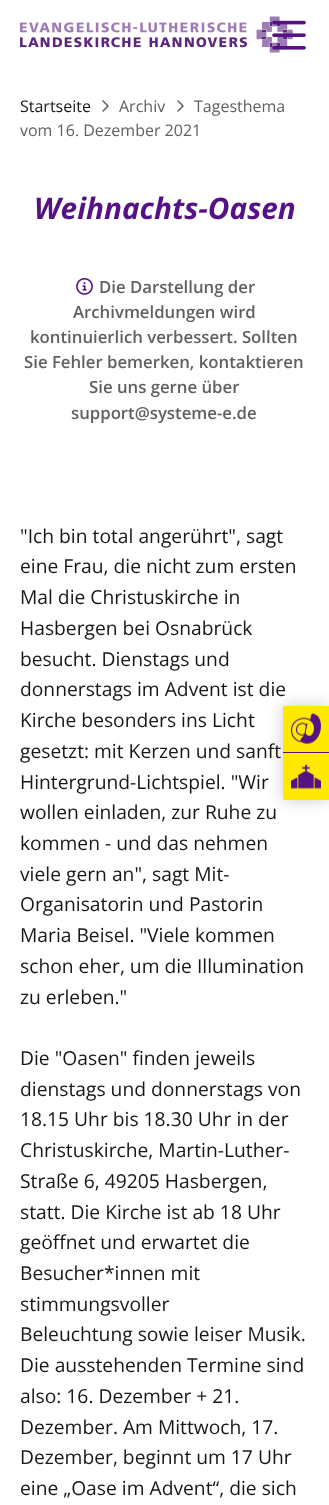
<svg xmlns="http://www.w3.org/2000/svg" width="329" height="1505">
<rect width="100%" height="100%" fill="#fff"/>
<image x="20" y="16" width="273" height="37" href="media/1.png"/>
<image x="272" y="20" width="34" height="30" href="media/2.png"/>
<text x="20" y="112" style="font-family:Open Sans;font-size:16px;fill:#171717">Startseite</text>
<image x="102" y="100" width="7" height="12" href="media/3.png"/>
<text x="119" y="112" style="font-family:Open Sans;font-size:16px;fill:#606060">Archiv</text>
<image x="177" y="100" width="7" height="12" href="media/3.png"/>
<text x="194" y="112" style="font-family:Open Sans;font-size:16px;fill:#606060">Tagesthema</text>
<text x="20" y="136" style="font-family:Open Sans;font-size:16px;fill:#606060">vom 16. Dezember 2021</text>
<text x="34" y="219" style="font-family:Open Sans;font-size:29.75px;font-weight:bold;font-style:italic;fill:#551285">Weihnachts-Oasen</text>
<image x="76" y="278" width="17" height="17" href="media/4.png"/>
<text x="99" y="293" style="font-family:Open Sans;font-size:16.75px;font-weight:600;fill:#606060">Die Darstellung der</text>
<text x="73" y="318" style="font-family:Open Sans;font-size:16.75px;font-weight:600;fill:#606060">Archivmeldungen wird</text>
<text x="30" y="343" style="font-family:Open Sans;font-size:16.75px;font-weight:600;fill:#606060">kontinuierlich verbessert. Sollten</text>
<text x="24" y="368" style="font-family:Open Sans;font-size:16.75px;font-weight:600;fill:#606060">Sie Fehler bemerken, kontaktieren</text>
<text x="89" y="393" style="font-family:Open Sans;font-size:16.75px;font-weight:600;fill:#606060">Sie uns gerne über</text>
<text x="71" y="419" style="font-family:Open Sans;font-size:16.75px;font-weight:600;fill:#606060">support@systeme-e.de</text>
<text x="20" y="543" style="font-family:Open Sans;font-size:19.25px;fill:#171717">"Ich bin total angerührt", sagt</text>
<text x="20" y="573" style="font-family:Open Sans;font-size:19.25px;fill:#171717">eine Frau, die nicht zum ersten</text>
<text x="20" y="604" style="font-family:Open Sans;font-size:19.25px;fill:#171717">Mal die Christuskirche in</text>
<text x="20" y="635" style="font-family:Open Sans;font-size:19.25px;fill:#171717">Hasbergen bei Osnabrück</text>
<text x="20" y="666" style="font-family:Open Sans;font-size:19.25px;fill:#171717">besucht. Dienstags und</text>
<text x="20" y="696" style="font-family:Open Sans;font-size:19.25px;fill:#171717">donnerstags im Advent ist die</text>
<text x="20" y="727" style="font-family:Open Sans;font-size:19.25px;fill:#171717">Kirche besonders ins Licht</text>
<text x="20" y="758" style="font-family:Open Sans;font-size:19.25px;fill:#171717">gesetzt: mit Kerzen und sanft</text>
<text x="20" y="789" style="font-family:Open Sans;font-size:19.25px;fill:#171717">Hintergrund-Lichtspiel. "Wir</text>
<text x="20" y="819" style="font-family:Open Sans;font-size:19.25px;fill:#171717">wollen einladen, zur Ruhe zu</text>
<text x="20" y="850" style="font-family:Open Sans;font-size:19.25px;fill:#171717">kommen - und das nehmen</text>
<text x="20" y="881" style="font-family:Open Sans;font-size:19.25px;fill:#171717">viele gern an", sagt Mit-</text>
<text x="20" y="911" style="font-family:Open Sans;font-size:19.25px;fill:#171717">Organisatorin und Pastorin</text>
<text x="20" y="942" style="font-family:Open Sans;font-size:19.25px;fill:#171717">Maria Beisel. "Viele kommen</text>
<text x="20" y="973" style="font-family:Open Sans;font-size:19.25px;fill:#171717">schon eher, um die Illumination</text>
<text x="20" y="1004" style="font-family:Open Sans;font-size:19.25px;fill:#171717">zu erleben."</text>
<text x="20" y="1065" style="font-family:Open Sans;font-size:19.25px;fill:#171717">Die "Oasen" finden jeweils</text>
<text x="20" y="1096" style="font-family:Open Sans;font-size:19.25px;fill:#171717">dienstags und donnerstags von</text>
<text x="20" y="1126" style="font-family:Open Sans;font-size:19.25px;fill:#171717">18.15 Uhr bis 18.30 Uhr in der</text>
<text x="20" y="1157" style="font-family:Open Sans;font-size:19.25px;fill:#171717">Christuskirche, Martin-Luther-</text>
<text x="20" y="1188" style="font-family:Open Sans;font-size:19.25px;fill:#171717">Straße 6, 49205 Hasbergen,</text>
<text x="20" y="1219" style="font-family:Open Sans;font-size:19.25px;fill:#171717">statt. Die Kirche ist ab 18 Uhr</text>
<text x="20" y="1249" style="font-family:Open Sans;font-size:19.25px;fill:#171717">geöffnet und erwartet die</text>
<text x="20" y="1280" style="font-family:Open Sans;font-size:19.25px;fill:#171717">Besucher*innen mit</text>
<text x="20" y="1311" style="font-family:Open Sans;font-size:19.25px;fill:#171717">stimmungsvoller</text>
<text x="20" y="1341" style="font-family:Open Sans;font-size:19.25px;fill:#171717">Beleuchtung sowie leiser Musik.</text>
<text x="20" y="1372" style="font-family:Open Sans;font-size:19.25px;fill:#171717">Die ausstehenden Termine sind</text>
<text x="20" y="1403" style="font-family:Open Sans;font-size:19.25px;fill:#171717">also: 16. Dezember + 21.</text>
<text x="20" y="1434" style="font-family:Open Sans;font-size:19.25px;fill:#171717">Dezember. Am Mittwoch, 17.</text>
<text x="20" y="1464" style="font-family:Open Sans;font-size:19.25px;fill:#171717">Dezember, beginnt um 17 Uhr</text>
<text x="20" y="1495" style="font-family:Open Sans;font-size:19.25px;fill:#171717">eine „Oase im Advent“, die sich</text>
<rect x="283" y="706" width="46" height="94" fill="#00000033" filter="blur(7.5px)"/>
<rect x="283" y="706" width="46" height="46" fill="#ffe900"/>
<rect x="283" y="752" width="46" height="1" fill="#551285"/>
<image x="291" y="713" width="30" height="31" href="media/5.png"/>
<rect x="283" y="753" width="46" height="47" fill="#ffe900"/>
<image x="291" y="764" width="30" height="25" href="media/6.png"/>
</svg>
